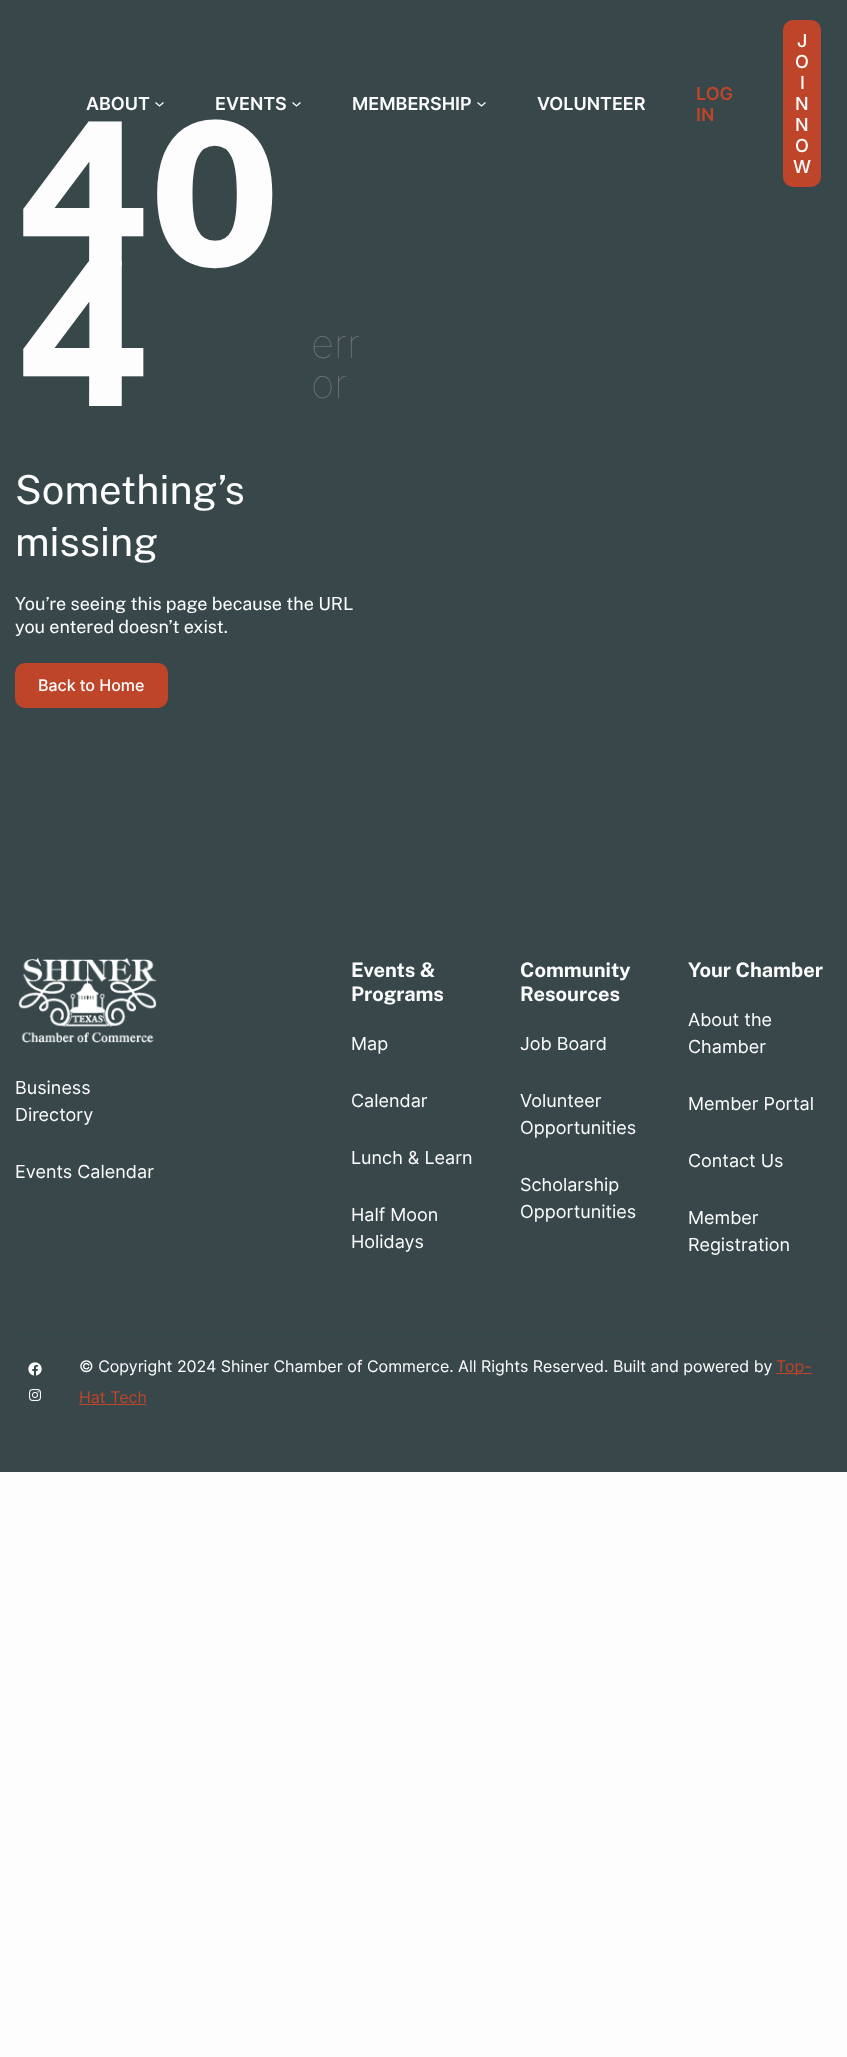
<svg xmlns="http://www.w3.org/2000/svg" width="847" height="2057">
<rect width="100%" height="100%" fill="#fdfdfd"/>
<rect width="847" height="1472" fill="#37474a"/>
<text x="86" y="110" style="font-family:Inter;font-size:18px;font-weight:600;fill:#fdfdfd">ABOUT</text>
<path d="M155.5 102.5l4 3.5l4-3.5" fill="none" stroke="#fdfdfd" stroke-width="1.3"/>
<text x="215" y="110" style="font-family:Inter;font-size:18px;font-weight:600;fill:#fdfdfd">EVENTS</text>
<path d="M292.5 102.5l4 3.5l4-3.5" fill="none" stroke="#fdfdfd" stroke-width="1.3"/>
<text x="352" y="110" style="font-family:Inter;font-size:18px;font-weight:600;fill:#fdfdfd">MEMBERSHIP</text>
<path d="M477.5 102.5l4 3.5l4-3.5" fill="none" stroke="#fdfdfd" stroke-width="1.3"/>
<text x="537" y="110" style="font-family:Inter;font-size:18px;font-weight:600;fill:#fdfdfd">VOLUNTEER</text>
<text x="696" y="100" style="font-family:Inter;font-size:18px;font-weight:600;fill:#bf452a">LOG</text>
<text x="696" y="121" style="font-family:Inter;font-size:18px;font-weight:600;fill:#bf452a">IN</text>
<rect x="783" y="20" width="38" height="167" rx="10" fill="#bf452a"/>
<text x="797" y="47" style="font-family:Inter;font-size:18px;font-weight:500;fill:#fdfdfd">J</text>
<text x="795" y="68" style="font-family:Inter;font-size:18px;font-weight:500;fill:#fdfdfd">O</text>
<text x="800" y="89" style="font-family:Inter;font-size:18px;font-weight:500;fill:#fdfdfd">I</text>
<text x="795" y="110" style="font-family:Inter;font-size:18px;font-weight:500;fill:#fdfdfd">N</text>
<text x="795" y="131" style="font-family:Inter;font-size:18px;font-weight:500;fill:#fdfdfd">N</text>
<text x="795" y="152" style="font-family:Inter;font-size:18px;font-weight:500;fill:#fdfdfd">O</text>
<text x="793" y="173" style="font-family:Inter;font-size:18px;font-weight:500;fill:#fdfdfd">W</text>
<text x="15" y="266" style="font-family:Public Sans;font-size:200px;font-weight:800;fill:#fdfdfd">40</text>
<text x="15" y="406" style="font-family:Public Sans;font-size:200px;font-weight:800;fill:#fdfdfd">4</text>
<text x="311" y="358" style="font-family:Inter;font-size:40px;font-weight:100;fill:#717171">err</text>
<text x="311" y="398" style="font-family:Inter;font-size:40px;font-weight:100;fill:#717171">or</text>
<text x="15" y="504" style="font-family:Public Sans;font-size:40px;fill:#fdfdfd">Something’s</text>
<text x="15" y="556" style="font-family:Public Sans;font-size:40px;fill:#fdfdfd">missing</text>
<text x="15" y="610" style="font-family:Public Sans;font-size:18px;fill:#fdfdfd">You’re seeing this page because the URL</text>
<text x="15" y="633" style="font-family:Public Sans;font-size:18px;fill:#fdfdfd">you entered doesn’t exist.</text>
<rect x="15" y="663" width="153" height="45" rx="10" fill="#bf452a"/>
<text x="38" y="691" style="font-family:Inter;font-size:16px;font-weight:500;fill:#fdfdfd">Back to Home</text>
<image x="18" y="958" width="139" height="85" href="media/1.png"/>
<text x="15" y="1094" style="font-family:Inter;font-size:18px;fill:#fdfdfd">Business</text>
<text x="15" y="1121" style="font-family:Inter;font-size:18px;fill:#fdfdfd">Directory</text>
<text x="15" y="1178" style="font-family:Inter;font-size:18px;fill:#fdfdfd">Events Calendar</text>
<text x="351" y="977" style="font-family:Public Sans;font-size:20px;font-weight:bold;fill:#fdfdfd">Events &amp;</text>
<text x="351" y="1001" style="font-family:Public Sans;font-size:20px;font-weight:bold;fill:#fdfdfd">Programs</text>
<text x="351" y="1050" style="font-family:Inter;font-size:18px;fill:#fdfdfd">Map</text>
<text x="351" y="1107" style="font-family:Inter;font-size:18px;fill:#fdfdfd">Calendar</text>
<text x="351" y="1164" style="font-family:Inter;font-size:18px;fill:#fdfdfd">Lunch &amp; Learn</text>
<text x="351" y="1221" style="font-family:Inter;font-size:18px;fill:#fdfdfd">Half Moon</text>
<text x="351" y="1248" style="font-family:Inter;font-size:18px;fill:#fdfdfd">Holidays</text>
<text x="520" y="977" style="font-family:Public Sans;font-size:20px;font-weight:bold;fill:#fdfdfd">Community</text>
<text x="520" y="1001" style="font-family:Public Sans;font-size:20px;font-weight:bold;fill:#fdfdfd">Resources</text>
<text x="520" y="1050" style="font-family:Inter;font-size:18px;fill:#fdfdfd">Job Board</text>
<text x="520" y="1107" style="font-family:Inter;font-size:18px;fill:#fdfdfd">Volunteer</text>
<text x="520" y="1134" style="font-family:Inter;font-size:18px;fill:#fdfdfd">Opportunities</text>
<text x="520" y="1191" style="font-family:Inter;font-size:18px;fill:#fdfdfd">Scholarship</text>
<text x="520" y="1218" style="font-family:Inter;font-size:18px;fill:#fdfdfd">Opportunities</text>
<text x="688" y="977" style="font-family:Public Sans;font-size:20px;font-weight:bold;fill:#fdfdfd">Your Chamber</text>
<text x="688" y="1026" style="font-family:Inter;font-size:18px;fill:#fdfdfd">About the</text>
<text x="688" y="1053" style="font-family:Inter;font-size:18px;fill:#fdfdfd">Chamber</text>
<text x="688" y="1110" style="font-family:Inter;font-size:18px;fill:#fdfdfd">Member Portal</text>
<text x="688" y="1167" style="font-family:Inter;font-size:18px;fill:#fdfdfd">Contact Us</text>
<text x="688" y="1224" style="font-family:Inter;font-size:18px;fill:#fdfdfd">Member</text>
<text x="688" y="1251" style="font-family:Inter;font-size:18px;fill:#fdfdfd">Registration</text>
<rect x="15" y="1330" width="817" height="1" fill="#454545"/>
<image x="28" y="1362" width="14" height="14" href="media/2.png"/>
<image x="29" y="1389" width="12" height="12" href="media/3.png"/>
<text x="79" y="1372" style="font-family:Inter;font-size:16px;fill:#fdfdfd">© Copyright 2024 Shiner Chamber of Commerce. All Rights Reserved. Built and powered by</text>
<rect x="776" y="1373" width="36" height="1" fill="#bf452a"/>
<text x="776" y="1372" style="font-family:Inter;font-size:16px;fill:#bf452a">Top-</text>
<text x="79" y="1403" style="font-family:Inter;font-size:16px;fill:#bf452a">Hat Tech</text>
<rect x="79" y="1404" width="67" height="1" fill="#bf452a"/>
</svg>
